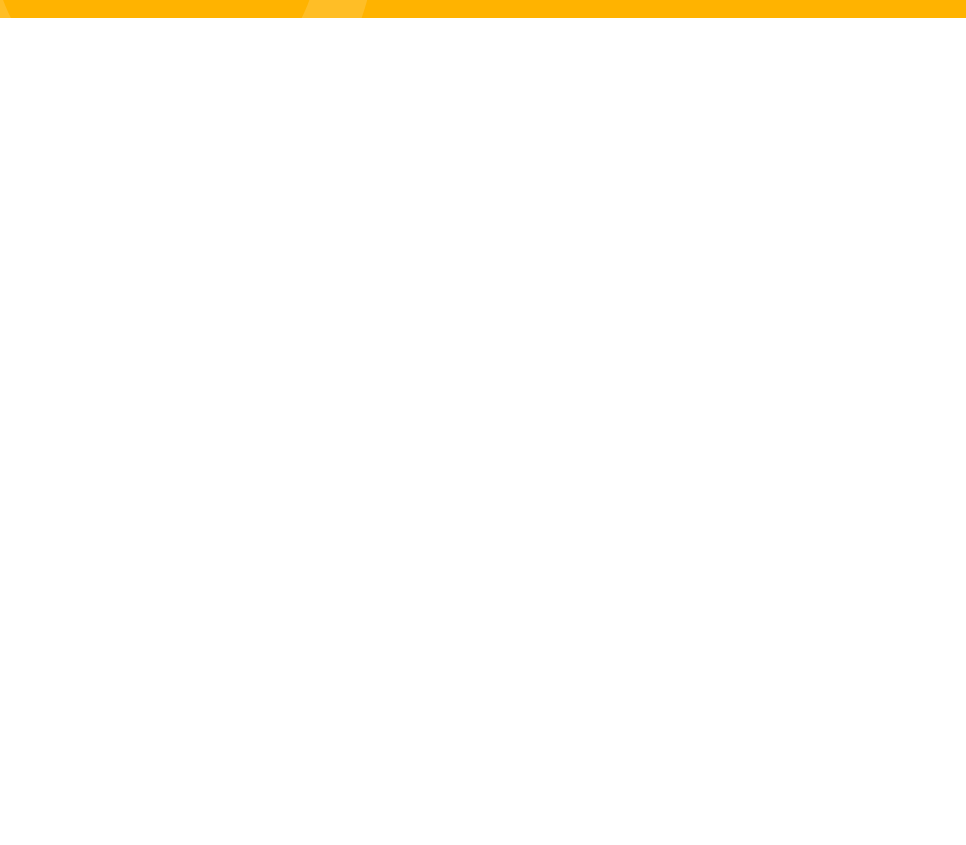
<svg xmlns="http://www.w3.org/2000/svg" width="966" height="845">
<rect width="100%" height="100%" fill="#fff"/>
<rect width="966" height="18" fill="#ffb300"/>
<image x="0" y="0" width="367" height="18" href="media/1.png"/>
</svg>
